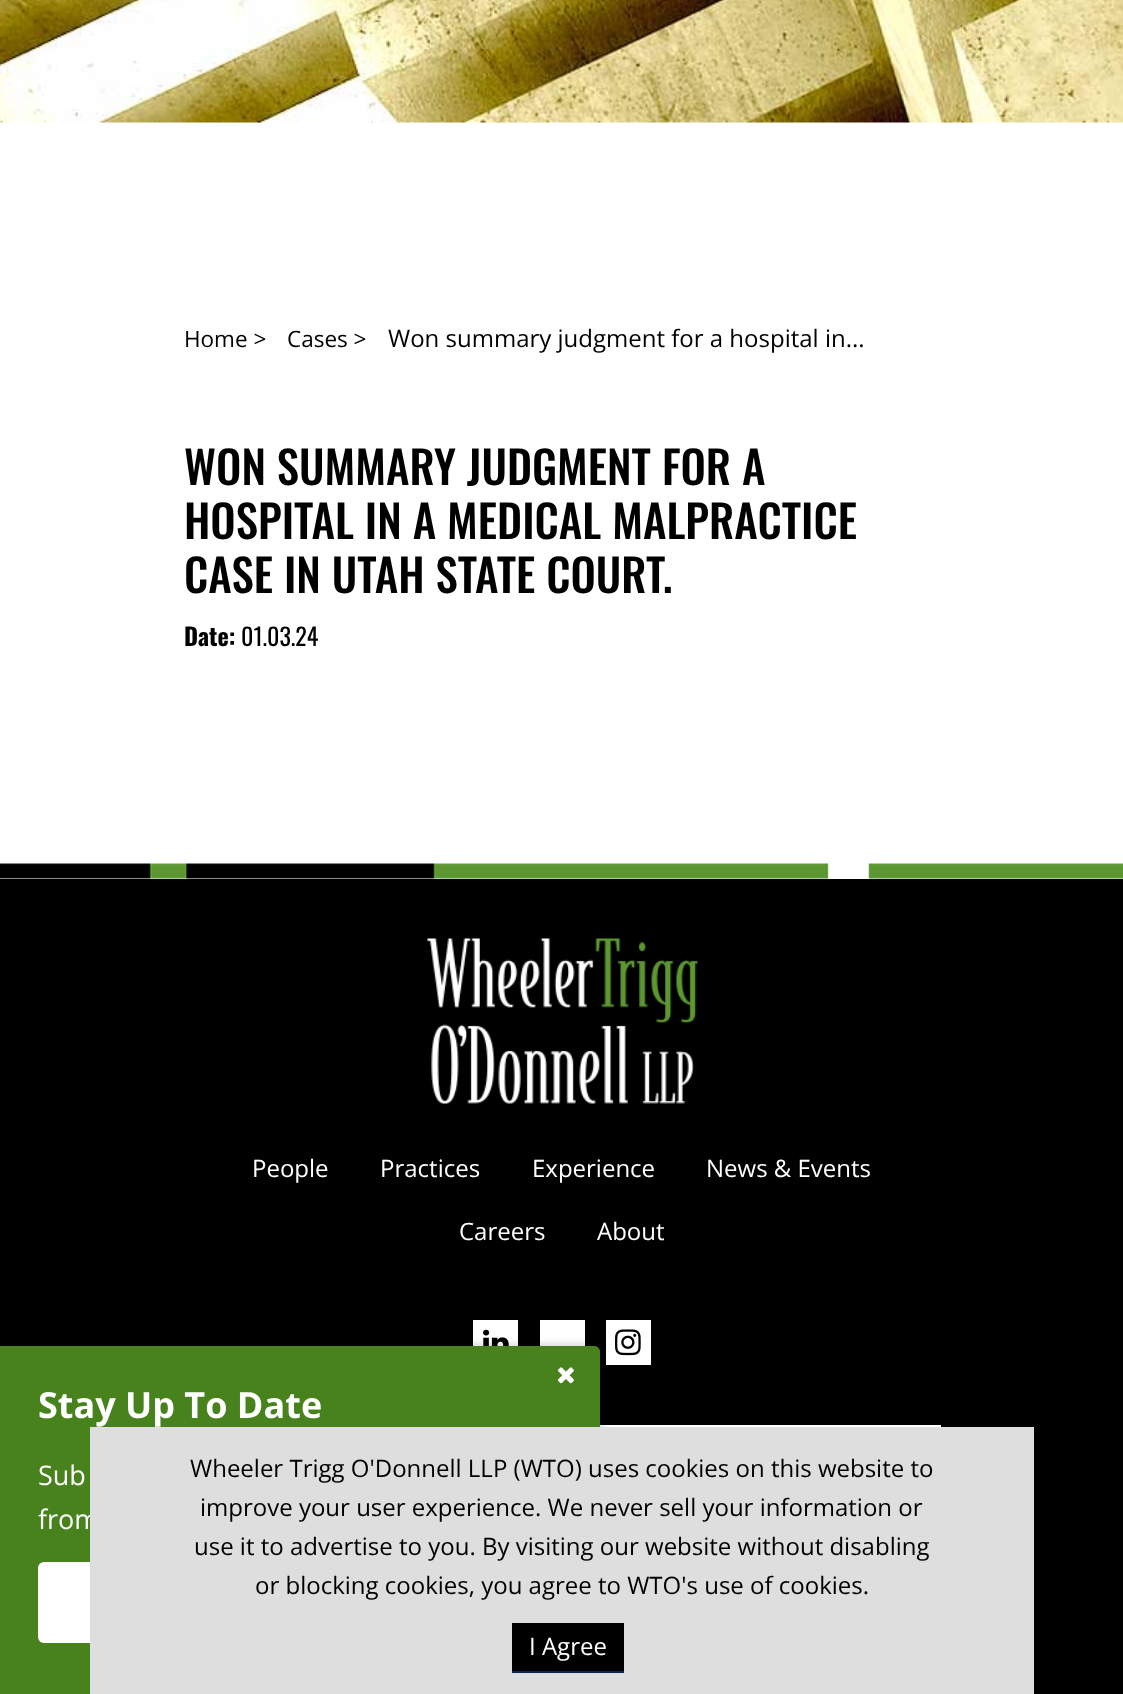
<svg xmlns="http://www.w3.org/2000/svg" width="1123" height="1694">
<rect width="100%" height="100%" fill="#fff"/>
<image x="0" y="0" width="1123" height="123" href="media/1.png"/>
<rect x="125" y="-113" width="261" height="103" fill="#ffffff4d" filter="blur(37.5px)"/>
<text x="184" y="347" style="font-family:Open Sans;font-size:22.5px;fill:#000">Home &gt;</text>
<text x="287" y="347" style="font-family:Open Sans;font-size:22.5px;fill:#000">Cases &gt;</text>
<text x="388" y="347" style="font-family:Open Sans;font-size:24px;fill:#000">Won summary judgment for a hospital in...</text>
<text x="184" y="485" style="font-family:Oswald;font-size:45px;font-weight:500;fill:#000">WON SUMMARY JUDGMENT FOR A</text>
<text x="184" y="539" style="font-family:Oswald;font-size:45px;font-weight:500;fill:#000">HOSPITAL IN A MEDICAL MALPRACTICE</text>
<text x="184" y="593" style="font-family:Oswald;font-size:45px;font-weight:500;fill:#000">CASE IN UTAH STATE COURT.</text>
<text x="184" y="646" style="font-family:Oswald;font-size:24px;font-weight:bold;fill:#000">Date:</text>
<text x="241" y="646" style="font-family:Oswald;font-size:24px;fill:#000">01.03.24</text>
<rect y="879" width="1123" height="815" fill="#000"/>
<image x="0" y="863" width="1123" height="16" href="media/2.png"/>
<rect x="600" y="1425" width="341" height="2" fill="#fff"/>
<image x="427" y="938" width="271" height="166" href="media/3.png"/>
<text x="252" y="1177" style="font-family:Open Sans;font-size:24px;fill:#fff">People</text>
<text x="380" y="1177" style="font-family:Open Sans;font-size:24px;fill:#fff">Practices</text>
<text x="532" y="1177" style="font-family:Open Sans;font-size:24px;fill:#fff">Experience</text>
<text x="706" y="1177" style="font-family:Open Sans;font-size:24px;fill:#fff">News &amp; Events</text>
<text x="459" y="1240" style="font-family:Open Sans;font-size:24px;fill:#fff">Careers</text>
<text x="597" y="1240" style="font-family:Open Sans;font-size:24px;fill:#fff">About</text>
<rect x="473" y="1320" width="45" height="26" fill="#fff"/>
<image x="483" y="1329" width="26" height="17" href="media/4.png"/>
<rect x="540" y="1320" width="45" height="26" fill="#fff"/>
<rect x="606" y="1320" width="45" height="45" fill="#fff"/>
<image x="615" y="1329" width="26" height="27" href="media/5.png"/>
<rect y="1346" width="600" height="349" rx="6" fill="#00000040" filter="blur(4px)"/>
<path d="M0 1346h594c3.5 0 6 2.5 6 6v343h-600z" fill="#48821c"/>
<image x="558" y="1367" width="16" height="17" href="media/6.png"/>
<text x="38" y="1418" style="font-family:Open Sans;font-size:36px;font-weight:bold;fill:#fff">Stay Up To Date</text>
<text x="38" y="1485" style="font-family:Open Sans;font-size:27px;fill:#fff">Sub</text>
<text x="38" y="1529" style="font-family:Open Sans;font-size:27px;fill:#fff">from</text>
<rect x="38" y="1562" width="525" height="81" rx="6" fill="#fff"/>
<rect x="90" y="1427" width="944" height="267" fill="#dedede"/>
<text x="190" y="1477" style="font-family:Open Sans;font-size:24px;fill:#000">Wheeler Trigg O'Donnell LLP (WTO) uses cookies on this website to</text>
<text x="200" y="1516" style="font-family:Open Sans;font-size:24px;fill:#000">improve your user experience. We never sell your information or</text>
<text x="194" y="1555" style="font-family:Open Sans;font-size:24px;fill:#000">use it to advertise to you. By visiting our website without disabling</text>
<text x="255" y="1594" style="font-family:Open Sans;font-size:24px;fill:#000">or blocking cookies, you agree to WTO's use of cookies.</text>
<rect x="512" y="1623" width="112" height="48" fill="#000"/>
<rect x="512" y="1671" width="112" height="2" fill="#072559"/>
<text x="529" y="1655" style="font-family:Open Sans;font-size:24px;fill:#fff">I Agree</text>
</svg>
